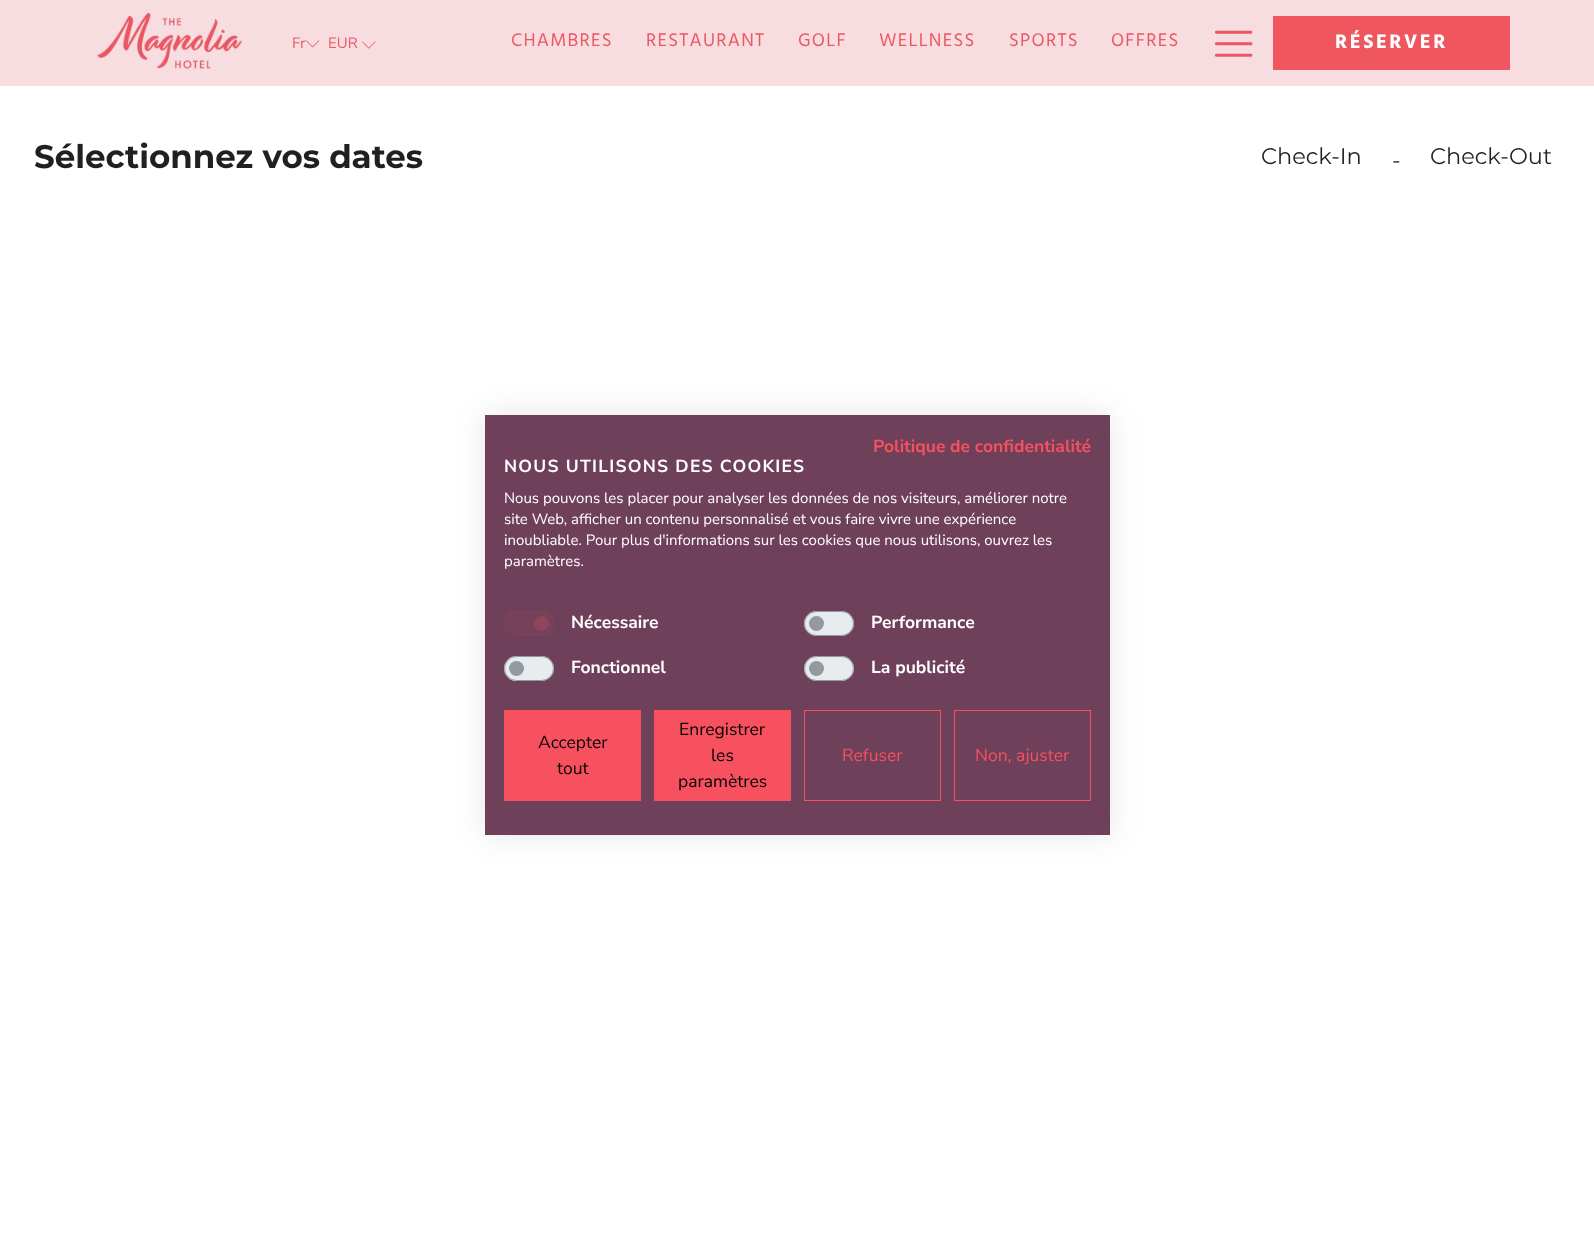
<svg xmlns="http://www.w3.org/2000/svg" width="1594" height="1248">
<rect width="100%" height="100%" fill="#fff"/>
<rect width="1594" height="86" fill="#f7dde0"/>
<image x="97" y="12" width="145" height="57" href="media/1.png"/>
<text x="292" y="48" style="font-family:Nunito Sans;font-size:15px;fill:#eb5862">Fr</text>
<image x="305" y="40" width="15" height="8" href="media/2.png"/>
<text x="328" y="48" style="font-family:Nunito Sans;font-size:15px;fill:#eb5862">EUR</text>
<image x="362" y="41" width="14" height="8" href="media/3.png"/>
<text x="511" y="46" style="font-family:Hind Guntur;font-size:18.75px;letter-spacing:1.25px;fill:#eb5862">CHAMBRES</text>
<text x="646" y="46" style="font-family:Hind Guntur;font-size:18.75px;letter-spacing:1.25px;fill:#eb5862">RESTAURANT</text>
<text x="798" y="46" style="font-family:Hind Guntur;font-size:18.75px;letter-spacing:1.25px;fill:#eb5862">GOLF</text>
<text x="879" y="46" style="font-family:Hind Guntur;font-size:18.75px;letter-spacing:1.25px;fill:#eb5862">WELLNESS</text>
<text x="1009" y="46" style="font-family:Hind Guntur;font-size:18.75px;letter-spacing:1.25px;fill:#eb5862">SPORTS</text>
<text x="1111" y="46" style="font-family:Hind Guntur;font-size:18.75px;letter-spacing:1.25px;fill:#eb5862">OFFRES</text>
<image x="1215" y="30" width="38" height="27" href="media/4.png"/>
<rect x="1273" y="16" width="237" height="54" fill="#ef565e"/>
<text x="1335" y="48" style="font-family:Hind Guntur;font-size:20px;font-weight:bold;letter-spacing:2.5px;fill:#fff">RÉSERVER</text>
<text x="34" y="168" style="font-family:Montserrat;font-size:32.5px;font-weight:bold;fill:#231f20">Sélectionnez vos dates</text>
<text x="1261" y="164" style="font-family:Montserrat;font-size:22.5px;fill:#231f20">Check-In</text>
<text x="1392" y="168" style="font-family:Montserrat;font-size:22.5px;fill:#231f20">-</text>
<text x="1430" y="164" style="font-family:Montserrat;font-size:22.5px;fill:#231f20">Check-Out</text>
<rect x="485" y="415" width="625" height="420" fill="#0000001a" filter="blur(15px)"/>
<rect x="485" y="415" width="625" height="420" fill="#6f405a"/>
<text x="873" y="452" style="font-family:Nunito Sans;font-size:17.5px;font-weight:bold;fill:#f7505e">Politique de confidentialité</text>
<text x="504" y="472" style="font-family:Nunito Sans;font-size:17.5px;font-weight:bold;letter-spacing:1.25px;fill:#fff">NOUS UTILISONS DES COOKIES</text>
<text x="504" y="503" style="font-family:Nunito Sans;font-size:15px;fill:#fff">Nous pouvons les placer pour analyser les données de nos visiteurs, améliorer notre</text>
<text x="504" y="524" style="font-family:Nunito Sans;font-size:15px;fill:#fff">site Web, afficher un contenu personnalisé et vous faire vivre une expérience</text>
<text x="504" y="545" style="font-family:Nunito Sans;font-size:15px;fill:#fff">inoubliable. Pour plus d'informations sur les cookies que nous utilisons, ouvrez les</text>
<text x="504" y="566" style="font-family:Nunito Sans;font-size:15px;fill:#fff">paramètres.</text>
<rect x="504" y="611" width="50" height="25" rx="12.5" fill="#76415a"/>
<circle cx="541.5" cy="623.5" r="7.5" fill="#91445b"/>
<rect x="504.5" y="611.5" width="49" height="24" rx="12" fill="none" stroke="#80425b"/>
<text x="571" y="628" style="font-family:Nunito Sans;font-size:17.5px;font-weight:bold;fill:#fff">Nécessaire</text>
<rect x="804" y="611" width="50" height="25" rx="12.5" fill="#e9ecef"/>
<circle cx="816.5" cy="623.5" r="7.5" fill="#92999f"/>
<rect x="804.5" y="611.5" width="49" height="24" rx="12" fill="none" stroke="#6c757db3"/>
<text x="871" y="628" style="font-family:Nunito Sans;font-size:17.5px;font-weight:bold;fill:#fff">Performance</text>
<rect x="504" y="656" width="50" height="25" rx="12.5" fill="#e9ecef"/>
<circle cx="516.5" cy="668.5" r="7.5" fill="#92999f"/>
<rect x="504.5" y="656.5" width="49" height="24" rx="12" fill="none" stroke="#6c757db3"/>
<text x="571" y="673" style="font-family:Nunito Sans;font-size:17.5px;font-weight:bold;fill:#fff">Fonctionnel</text>
<rect x="804" y="656" width="50" height="25" rx="12.5" fill="#e9ecef"/>
<circle cx="816.5" cy="668.5" r="7.5" fill="#92999f"/>
<rect x="804.5" y="656.5" width="49" height="24" rx="12" fill="none" stroke="#6c757db3"/>
<text x="871" y="673" style="font-family:Nunito Sans;font-size:17.5px;font-weight:bold;fill:#fff">La publicité</text>
<rect x="504" y="710" width="137" height="91" fill="#f7505e"/>
<text x="538" y="748" style="font-family:Nunito Sans;font-size:17.5px;fill:#000">Accepter</text>
<text x="557" y="774" style="font-family:Nunito Sans;font-size:17.5px;fill:#000">tout</text>
<rect x="654" y="710" width="137" height="91" fill="#f7505e"/>
<text x="679" y="735" style="font-family:Nunito Sans;font-size:17.5px;fill:#000">Enregistrer</text>
<text x="711" y="761" style="font-family:Nunito Sans;font-size:17.5px;fill:#000">les</text>
<text x="678" y="787" style="font-family:Nunito Sans;font-size:17.5px;fill:#000">paramètres</text>
<rect x="804.5" y="710.5" width="136" height="90" fill="none" stroke="#f7505e"/>
<text x="842" y="761" style="font-family:Nunito Sans;font-size:17.5px;fill:#f7505e">Refuser</text>
<rect x="954.5" y="710.5" width="136" height="90" fill="none" stroke="#f7505e"/>
<text x="975" y="761" style="font-family:Nunito Sans;font-size:17.5px;fill:#f7505e">Non, ajuster</text>
</svg>
